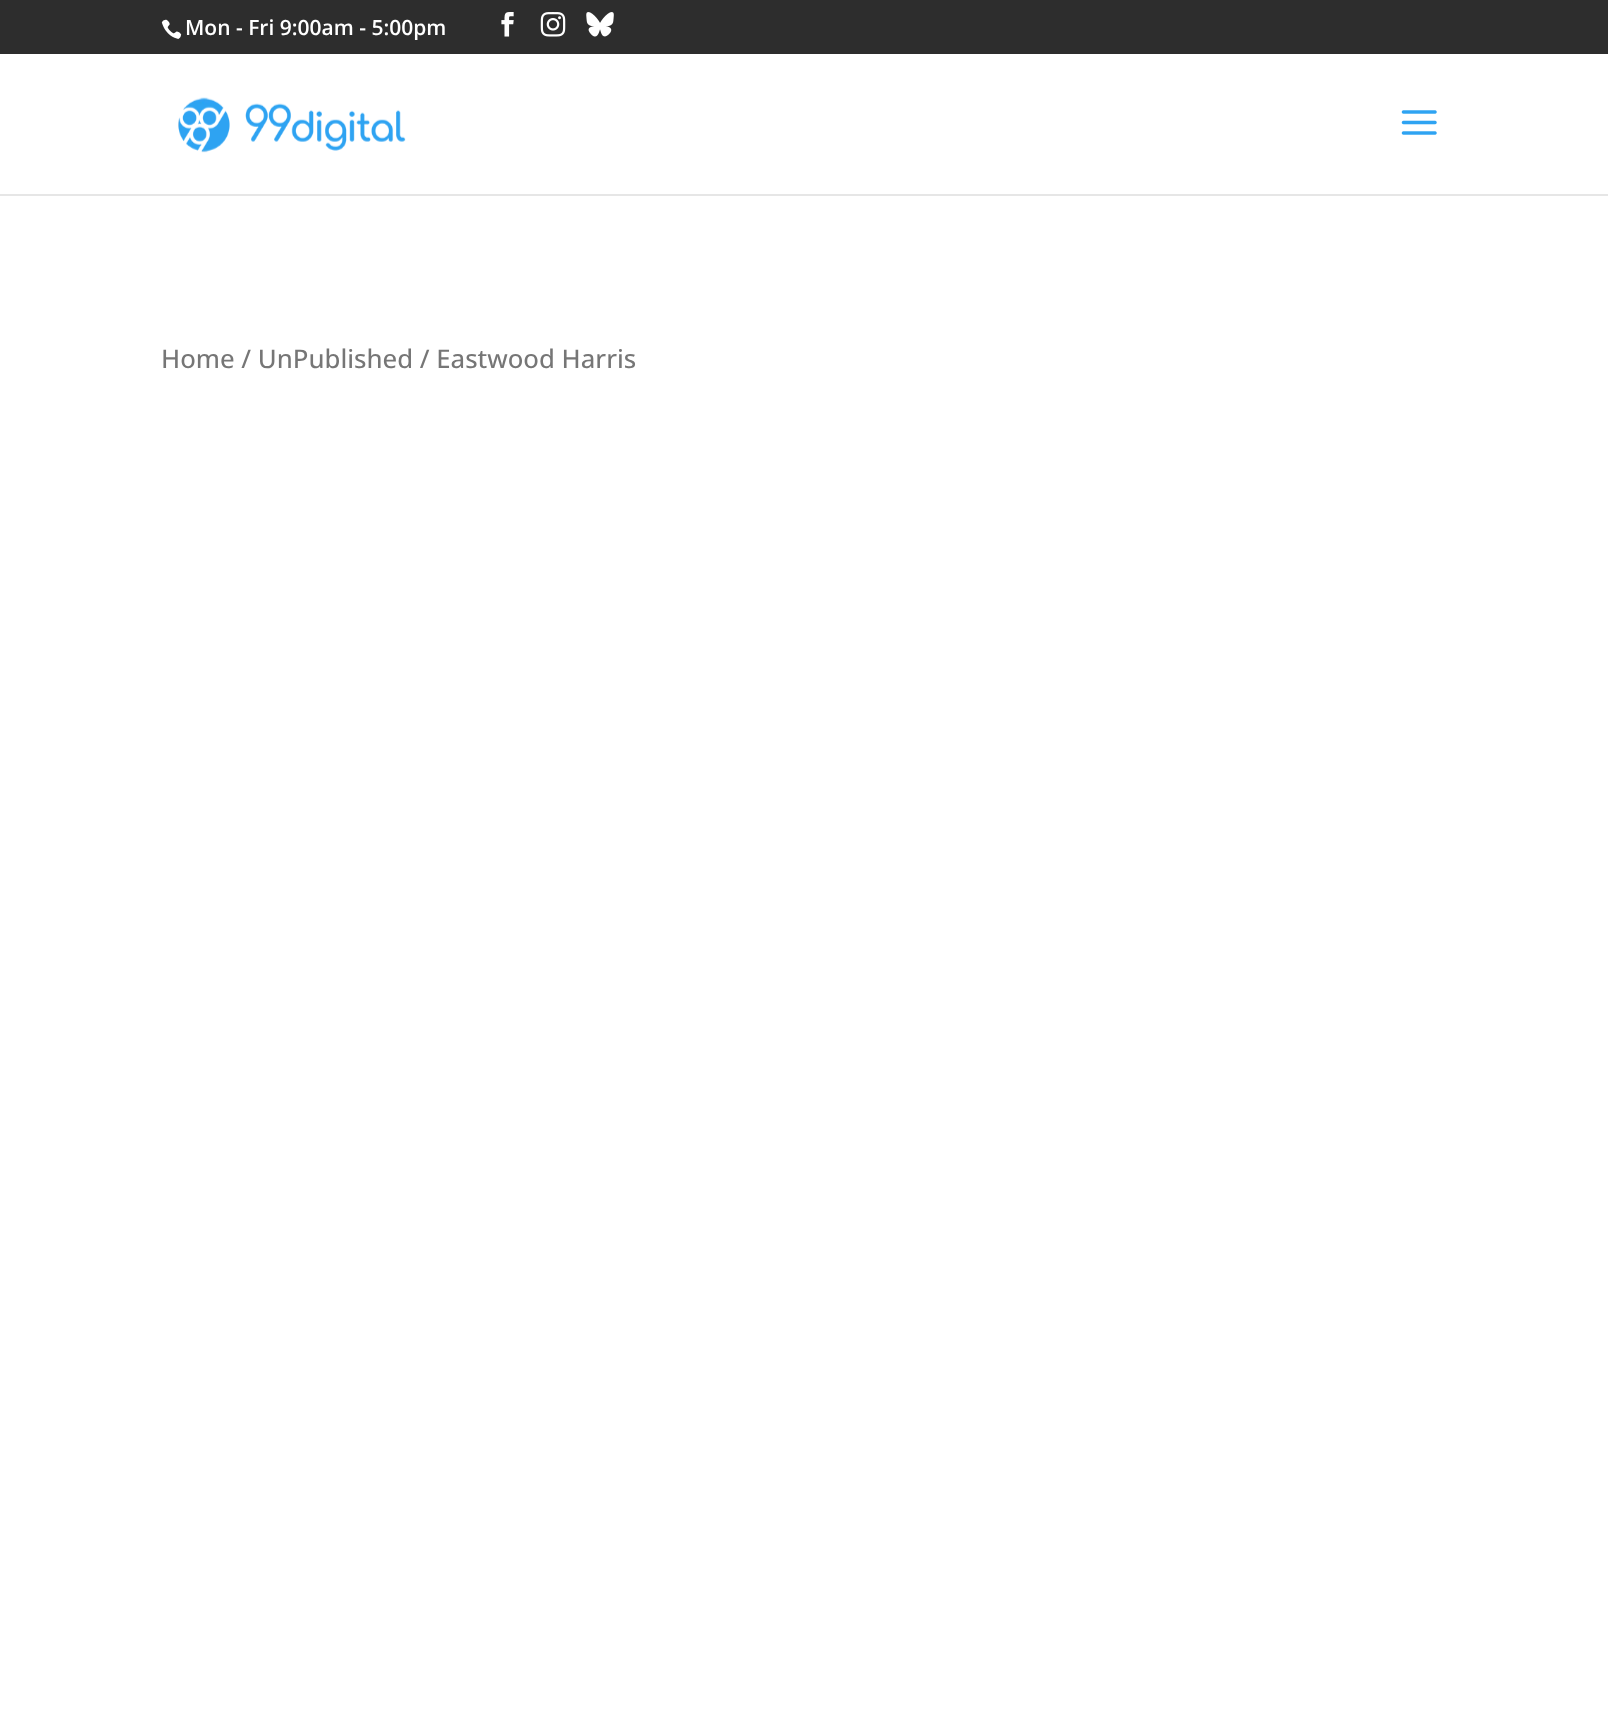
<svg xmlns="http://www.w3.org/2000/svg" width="1608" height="1730">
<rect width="100%" height="100%" fill="#fff"/>
<rect width="1608" height="54" fill="#2d2d2d"/>
<image x="161" y="19" width="21" height="20" href="media/1.png"/>
<text x="185" y="35" style="font-family:Open Sans;font-size:21px;font-weight:600;fill:#fff">Mon - Fri 9:00am - 5:00pm</text>
<image x="501" y="12" width="13" height="25" href="media/2.png"/>
<image x="540" y="12" width="26" height="25" href="media/3.png"/>
<image x="586" y="12" width="28" height="25" href="media/4.png"/>
<rect y="194" width="1608" height="2" fill="#e6e6e6"/>
<image x="178" y="97" width="228" height="56" href="media/5.png"/>
<image x="1401" y="110" width="36" height="25" href="media/6.png"/>
<text x="161" y="368" style="font-family:Open Sans;font-size:25.75px;font-weight:500;fill:#767676">Home / UnPublished / Eastwood Harris</text>
</svg>
